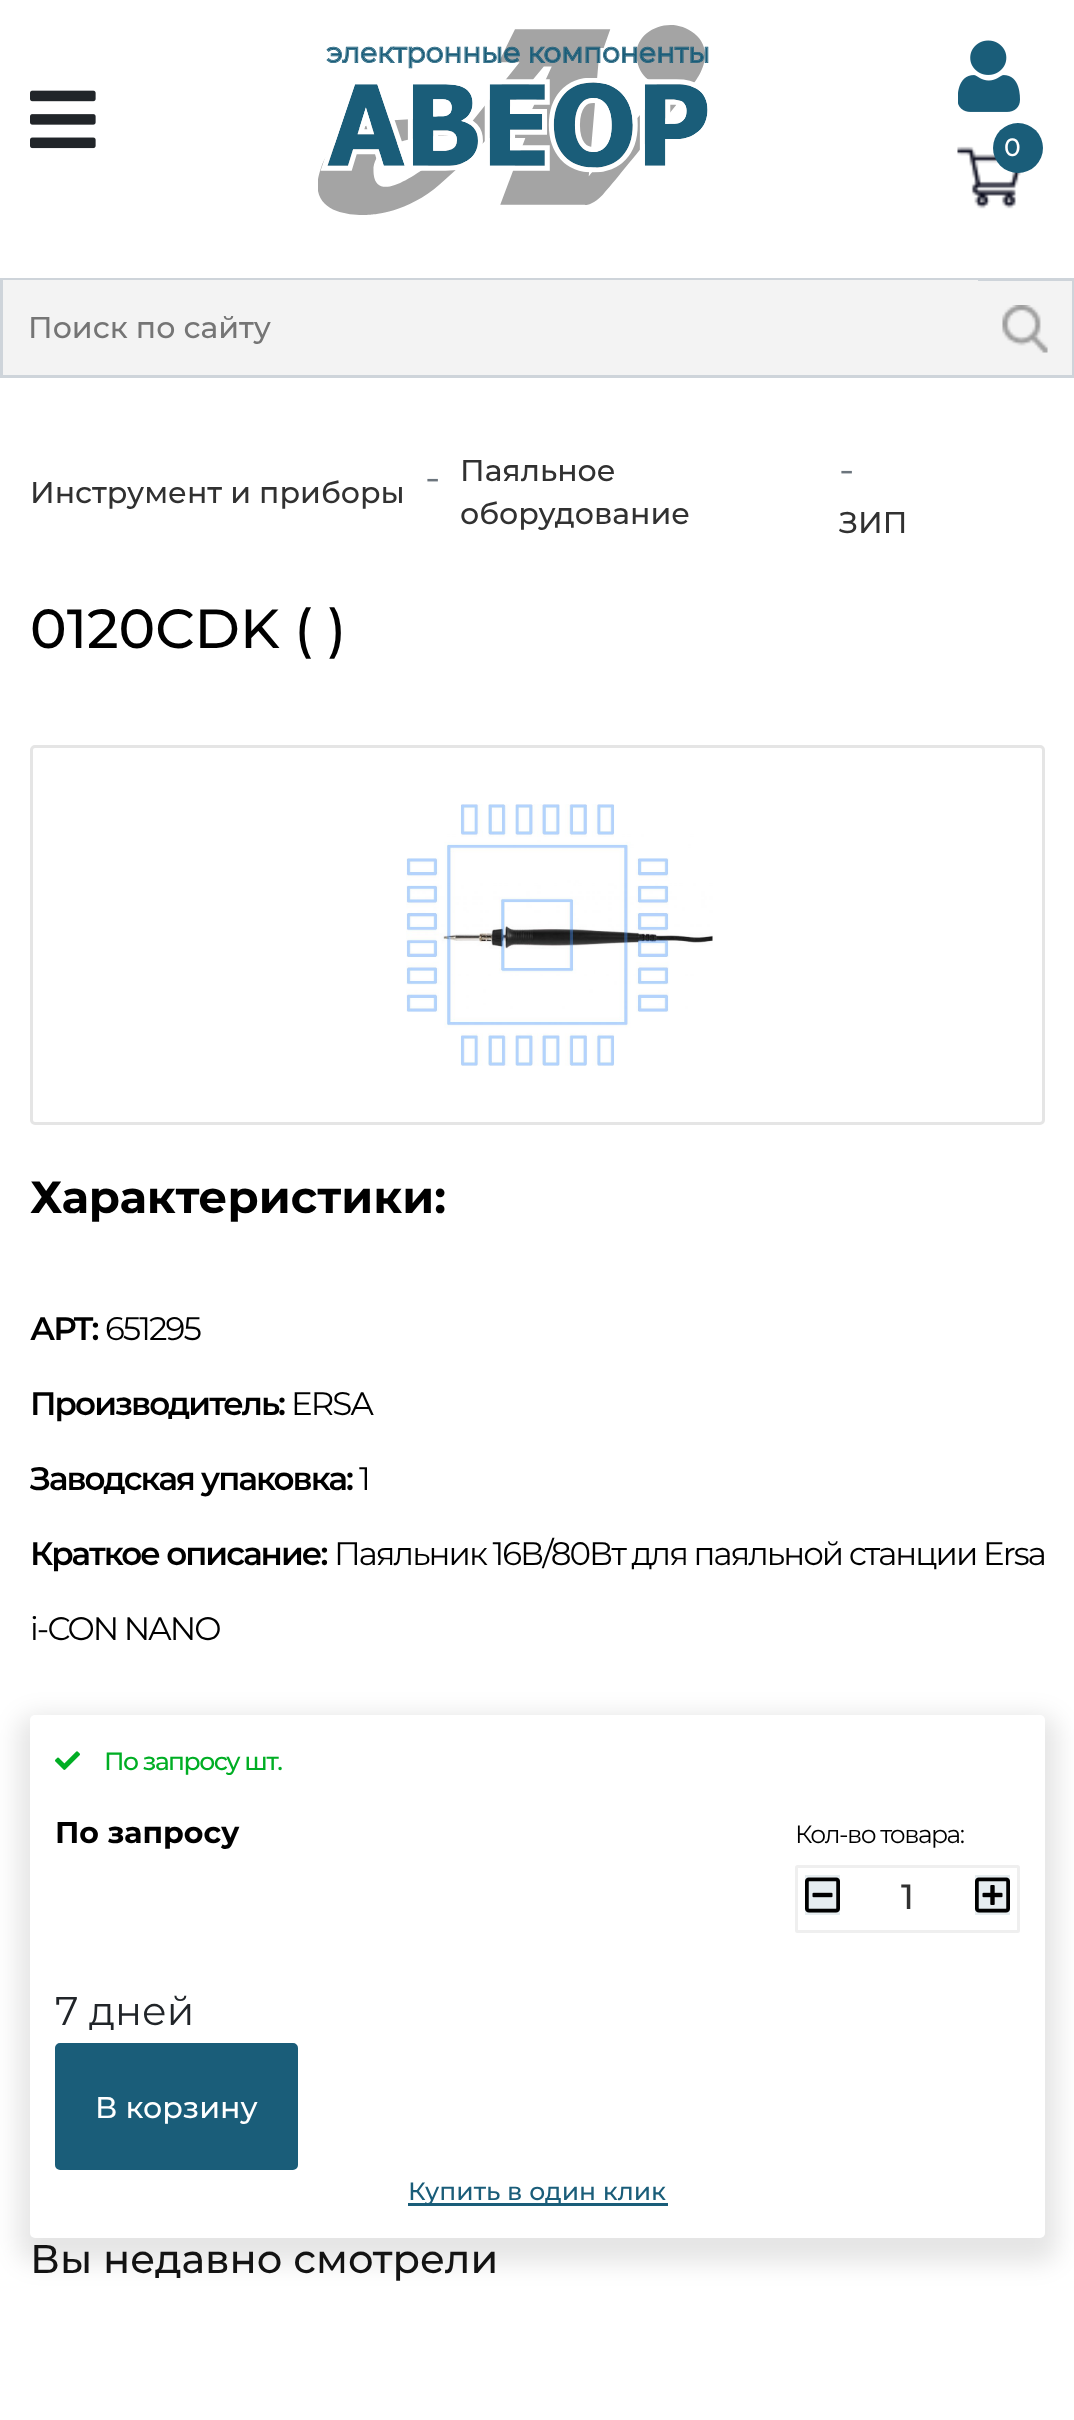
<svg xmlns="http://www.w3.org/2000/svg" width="1074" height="2420">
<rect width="100%" height="100%" fill="#fff"/>
<image x="30" y="90" width="66" height="59" href="media/1.png"/>
<image x="318" y="25" width="391" height="190" href="media/2.png"/>
<image x="958" y="40" width="62" height="72" href="media/3.png"/>
<image x="957" y="146" width="64" height="63" href="media/4.png"/>
<circle cx="1018" cy="148" r="25" fill="#1a5d79"/>
<text x="1004" y="156" style="font-family:Montserrat;font-size:25px;font-weight:500;fill:#fff">0</text>
<rect x="978" y="281" width="94" height="94" fill="#f3f3f3"/>
<rect x="1.5" y="279.5" width="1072" height="97" fill="none" stroke="#ced4da" stroke-width="3"/>
<rect x="3" y="280" width="975" height="95" fill="#f3f3f3"/>
<text x="28" y="338" style="font-family:Montserrat;font-size:30px;font-weight:500;fill:#757575">Поиск по сайту</text>
<image x="1002" y="305" width="46" height="48" href="media/5.png"/>
<text x="30" y="503" style="font-family:Montserrat;font-size:30px;font-weight:500;fill:#313131">Инструмент и приборы</text>
<text x="425" y="491" style="font-family:Montserrat;font-size:40px;fill:#6c757d">-</text>
<text x="460" y="481" style="font-family:Montserrat;font-size:30px;font-weight:500;fill:#313131">Паяльное</text>
<text x="460" y="524" style="font-family:Montserrat;font-size:30px;font-weight:500;fill:#313131">оборудование</text>
<text x="839" y="483" style="font-family:Montserrat;font-size:40px;fill:#6c757d">-</text>
<text x="839" y="533" style="font-family:Montserrat;font-size:30px;font-weight:500;fill:#313131">ЗИП</text>
<text x="30" y="648" style="font-family:Montserrat;font-size:55px;font-weight:500;fill:#000">0120CDK ( )</text>
<rect x="31.5" y="746.5" width="1012" height="377" rx="3.5" fill="none" stroke="#e5e5e5" stroke-width="3"/>
<image x="406" y="804" width="307" height="262" href="media/6.png"/>
<text x="30" y="1213" style="font-family:Montserrat;font-size:45px;font-weight:bold;fill:#000">Характеристики:</text>
<text x="30" y="1340" style="font-family:Montserrat;font-size:32.5px;font-weight:600;letter-spacing:-1.95px;fill:#000">АРТ:</text>
<text x="105" y="1340" style="font-family:Montserrat;font-size:32.5px;letter-spacing:-1.95px;fill:#000">651295</text>
<text x="30" y="1415" style="font-family:Montserrat;font-size:32.5px;font-weight:600;letter-spacing:-1.95px;fill:#000">Производитель:</text>
<text x="291" y="1415" style="font-family:Montserrat;font-size:32.5px;letter-spacing:-1.95px;fill:#000">ERSA</text>
<text x="30" y="1490" style="font-family:Montserrat;font-size:32.5px;font-weight:600;letter-spacing:-1.95px;fill:#000">Заводская упаковка:</text>
<text x="359" y="1490" style="font-family:Montserrat;font-size:32.5px;letter-spacing:-1.95px;fill:#000">1</text>
<text x="30" y="1565" style="font-family:Montserrat;font-size:32.5px;font-weight:600;letter-spacing:-1.95px;fill:#000">Краткое описание:</text>
<text x="334" y="1565" style="font-family:Montserrat;font-size:32.5px;letter-spacing:-1.95px;fill:#000">Паяльник 16В/80Вт для паяльной станции Ersa</text>
<text x="30" y="1640" style="font-family:Montserrat;font-size:32.5px;letter-spacing:-1.95px;fill:#000">i-CON NANO</text>
<rect x="18" y="1715" width="1040" height="548" rx="18" fill="#0000001a" filter="blur(12.5px)"/>
<rect x="30" y="1715" width="1015" height="523" rx="5" fill="#fff"/>
<image x="55" y="1751" width="25" height="19" href="media/7.png"/>
<text x="104" y="1770" style="font-family:Montserrat;font-size:25px;font-weight:500;letter-spacing:-1.5px;fill:#00ae24">По запросу шт.</text>
<text x="55" y="1843" style="font-family:Montserrat;font-size:30px;font-weight:bold;fill:#000">По запросу</text>
<text x="795" y="1843" style="font-family:Montserrat;font-size:25px;letter-spacing:-1.5px;fill:#000">Кол-во товара:</text>
<rect x="796.5" y="1866.5" width="222" height="65" rx="1" fill="none" stroke="#efefef" stroke-width="3"/>
<rect x="805" y="1875" width="35" height="40" fill="#e6edf0"/>
<image x="805" y="1877" width="35" height="36" href="media/8.png"/>
<text x="901" y="1909" style="font-family:Montserrat;font-size:35px;font-weight:500;fill:#313131">1</text>
<rect x="975" y="1875" width="35" height="40" fill="#e6edf0"/>
<image x="975" y="1877" width="35" height="36" href="media/9.png"/>
<text x="55" y="2025" style="font-family:Montserrat;font-size:40px;fill:#212529">7 дней</text>
<rect x="56.5" y="2044.5" width="240" height="124" rx="3.5" fill="#1a5d79" stroke="#1a5d79" stroke-width="3"/>
<text x="95" y="2118" style="font-family:Montserrat;font-size:30px;font-weight:500;fill:#fff">В корзину</text>
<rect x="408" y="2203" width="260" height="3" fill="#1a5d79"/>
<text x="408" y="2200" style="font-family:Montserrat;font-size:25px;font-weight:500;fill:#1a5d79">Купить в один клик</text>
<text x="30" y="2273" style="font-family:Montserrat;font-size:40px;font-weight:500;fill:#131313">Вы недавно смотрели</text>
</svg>
